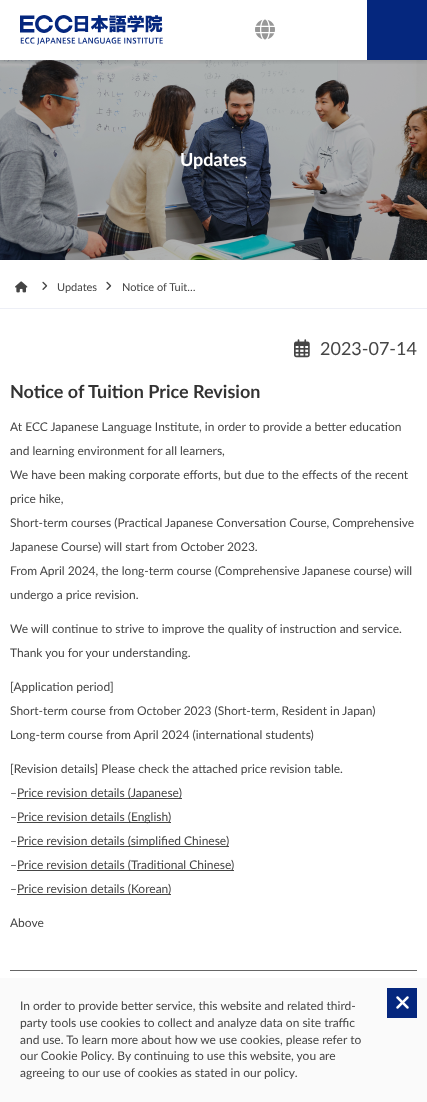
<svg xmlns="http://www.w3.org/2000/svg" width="427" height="1102">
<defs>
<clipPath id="clip1"><rect x="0" y="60" width="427" height="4"/></clipPath>
</defs>
<rect width="100%" height="100%" fill="#fff"/>
<image x="0" y="60" width="427" height="200" href="media/3.png"/>
<g clip-path="url(#clip1)">
<rect width="427" height="60" fill="#00000033" filter="blur(3px)"/>
</g>
<image x="20" y="15" width="143" height="30" href="media/1.png"/>
<image x="255" y="19" width="20" height="21" href="media/2.png"/>
<rect x="367" width="60" height="60" fill="#05277e"/>
<text x="180" y="166" style="font-family:Lato;font-size:18px;font-weight:bold;fill:#fff">Updates</text>
<rect y="308" width="427" height="1" fill="#edeff6"/>
<image x="15" y="281" width="13" height="12" href="media/4.png"/>
<image x="42" y="281" width="6" height="9" href="media/5.png"/>
<text x="57" y="291" style="font-family:Lato;font-size:11px;fill:#454545">Updates</text>
<image x="106" y="281" width="6" height="9" href="media/5.png"/>
<text x="122" y="291" style="font-family:Lato;font-size:11px;fill:#454545">Notice of Tuit…</text>
<image x="294" y="339" width="16" height="19" href="media/6.png"/>
<text x="320" y="355" style="font-family:Lato;font-size:18px;fill:#454545">2023-07-14</text>
<text x="10" y="398" style="font-family:Lato;font-size:18px;font-weight:bold;fill:#333">Notice of Tuition Price Revision</text>
<text x="10" y="431" style="font-family:Lato;font-size:12px;fill:#454545">At ECC Japanese Language Institute, in order to provide a better education</text>
<text x="10" y="455" style="font-family:Lato;font-size:12px;fill:#454545">and learning environment for all learners,</text>
<text x="10" y="479" style="font-family:Lato;font-size:12px;fill:#454545">We have been making corporate efforts, but due to the effects of the recent</text>
<text x="10" y="503" style="font-family:Lato;font-size:12px;fill:#454545">price hike,</text>
<text x="10" y="527" style="font-family:Lato;font-size:12px;fill:#454545">Short-term courses (Practical Japanese Conversation Course, Comprehensive</text>
<text x="10" y="551" style="font-family:Lato;font-size:12px;fill:#454545">Japanese Course) will start from October 2023.</text>
<text x="10" y="575" style="font-family:Lato;font-size:12px;fill:#454545">From April 2024, the long-term course (Comprehensive Japanese course) will</text>
<text x="10" y="599" style="font-family:Lato;font-size:12px;fill:#454545">undergo a price revision.</text>
<text x="10" y="633" style="font-family:Lato;font-size:12px;fill:#454545">We will continue to strive to improve the quality of instruction and service.</text>
<text x="10" y="657" style="font-family:Lato;font-size:12px;fill:#454545">Thank you for your understanding.</text>
<text x="10" y="691" style="font-family:Lato;font-size:12px;fill:#454545">[Application period]</text>
<text x="10" y="715" style="font-family:Lato;font-size:12px;fill:#454545">Short-term course from October 2023 (Short-term, Resident in Japan)</text>
<text x="10" y="739" style="font-family:Lato;font-size:12px;fill:#454545">Long-term course from April 2024 (international students)</text>
<text x="10" y="773" style="font-family:Lato;font-size:12px;fill:#454545">[Revision details] Please check the attached price revision table.</text>
<text x="10" y="797" style="font-family:Lato;font-size:12px;fill:#454545">–</text>
<rect x="17" y="798" width="165" height="1" fill="#454545"/>
<text x="17" y="797" style="font-family:Lato;font-size:12px;fill:#454545">Price revision details (Japanese)</text>
<text x="10" y="821" style="font-family:Lato;font-size:12px;fill:#454545">–</text>
<rect x="17" y="822" width="154" height="1" fill="#454545"/>
<text x="17" y="821" style="font-family:Lato;font-size:12px;fill:#454545">Price revision details (English)</text>
<text x="10" y="845" style="font-family:Lato;font-size:12px;fill:#454545">–</text>
<rect x="17" y="846" width="212" height="1" fill="#454545"/>
<text x="17" y="845" style="font-family:Lato;font-size:12px;fill:#454545">Price revision details (simplified Chinese)</text>
<text x="10" y="869" style="font-family:Lato;font-size:12px;fill:#454545">–</text>
<rect x="17" y="870" width="217" height="1" fill="#454545"/>
<text x="17" y="869" style="font-family:Lato;font-size:12px;fill:#454545">Price revision details (Traditional Chinese)</text>
<text x="10" y="893" style="font-family:Lato;font-size:12px;fill:#454545">–</text>
<rect x="17" y="894" width="154" height="1" fill="#454545"/>
<text x="17" y="893" style="font-family:Lato;font-size:12px;fill:#454545">Price revision details (Korean)</text>
<text x="10" y="927" style="font-family:Lato;font-size:12px;fill:#454545">Above</text>
<rect x="10" y="970" width="407" height="1" fill="#666"/>
<rect y="978" width="427" height="124" fill="#fafafa"/>
<text x="20" y="1010" style="font-family:Lato;font-size:12px;fill:#454545">In order to provide better service, this website and related third-</text>
<text x="20" y="1027" style="font-family:Lato;font-size:12px;fill:#454545">party tools use cookies to collect and analyze data on site traffic</text>
<text x="20" y="1044" style="font-family:Lato;font-size:12px;fill:#454545">and use. To learn more about how we use cookies, please refer to</text>
<text x="20" y="1060" style="font-family:Lato;font-size:12px;fill:#454545">our Cookie Policy. By continuing to use this website, you are</text>
<text x="20" y="1077" style="font-family:Lato;font-size:12px;fill:#454545">agreeing to our use of cookies as stated in our policy.</text>
<rect x="387" y="988" width="30" height="30" fill="#05277e"/>
<image x="396" y="996" width="13" height="13" href="media/7.png"/>
</svg>
